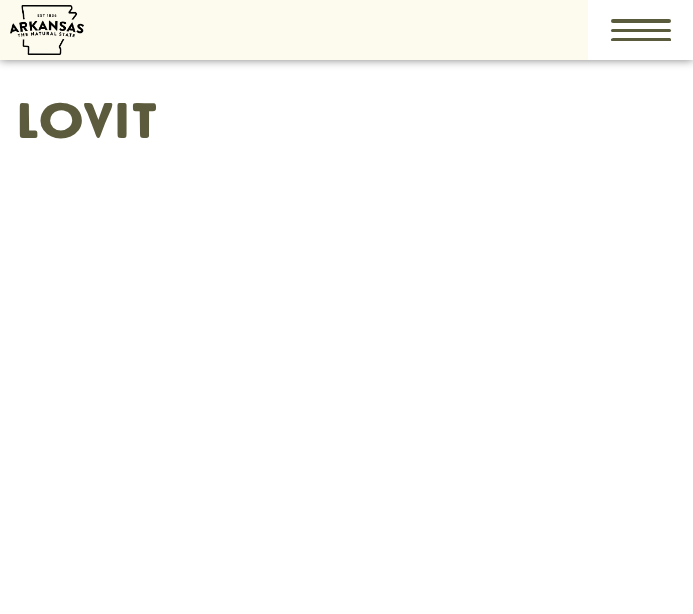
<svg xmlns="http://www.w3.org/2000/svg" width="693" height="614">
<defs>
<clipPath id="clip1"><rect x="611" y="19" width="60" height="22"/></clipPath>
</defs>
<rect width="100%" height="100%" fill="#fff"/>
<rect width="693" height="60" fill="#00000080" filter="blur(5px)"/>
<rect width="588" height="60" fill="#fdfbee"/>
<image x="10" y="5" width="74" height="50" href="media/1.png"/>
<rect x="588" width="105" height="60" fill="#fff"/>
<rect x="611" y="19" width="60" height="4" rx="2" fill="#595b3c"/>
<rect x="611" y="29" width="60" height="3" rx="1.5" fill="#595b3c"/>
<g clip-path="url(#clip1)">
<path d="M613 38h56c2 0 3 2 1 4h-58c-1-1-1-2-1-3z" fill="#595b3c"/>
</g>
<text x="15" y="138" style="font-family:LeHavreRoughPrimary;font-size:48px;font-weight:bold;fill:#5c5b3d">LOVIT</text>
</svg>
